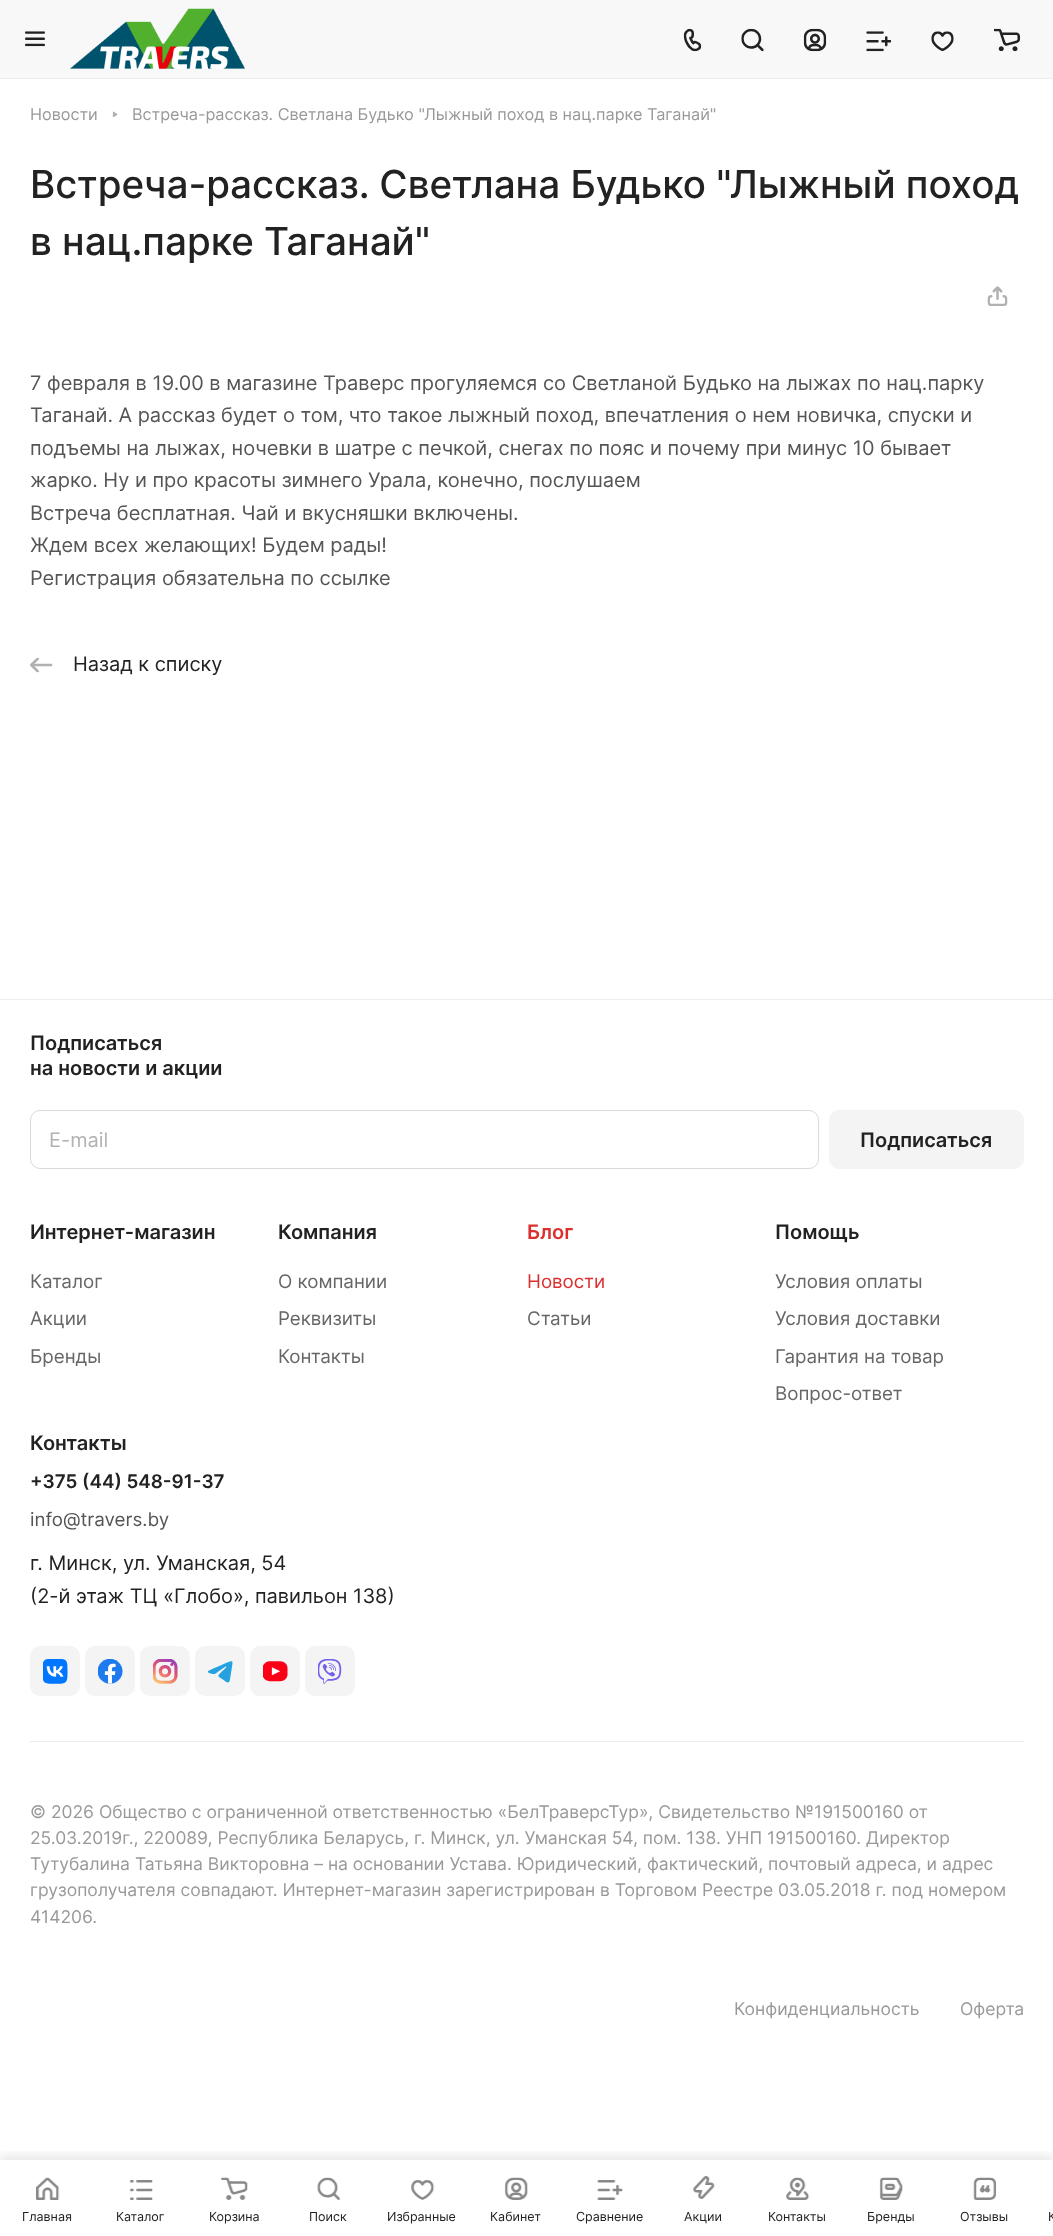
<svg xmlns="http://www.w3.org/2000/svg" width="1053" height="2236">
<defs>
<clipPath id="clip1"><rect x="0" y="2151" width="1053" height="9"/></clipPath>
</defs>
<rect width="100%" height="100%" fill="#fff"/>
<path d="M0 78v1h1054v-78v77z" fill="#ededed"/>
<rect width="1053" height="78" fill="#f8f8f8"/>
<image x="25" y="31" width="20" height="16" href="media/1.png"/>
<image x="70" y="8" width="175" height="61" href="media/2.png"/>
<image x="683" y="28" width="19" height="24" href="media/3.png"/>
<image x="741" y="28" width="23" height="24" href="media/4.png"/>
<image x="803" y="28" width="24" height="24" href="media/5.png"/>
<image x="866" y="31" width="26" height="21" href="media/6.png"/>
<image x="931" y="31" width="23" height="20" href="media/7.png"/>
<image x="993" y="28" width="27" height="24" href="media/8.png"/>
<text x="30" y="120" style="font-family:Inter;font-size:16.25px;fill:#999">Новости</text>
<image x="112" y="111" width="6" height="6" href="media/9.png"/>
<text x="132" y="120" style="font-family:Inter;font-size:16.25px;fill:#999">Встреча-рассказ. Светлана Будько "Лыжный поход в нац.парке Таганай"</text>
<text x="30" y="198" style="font-family:Inter;font-size:38.6px;font-weight:500;fill:#222">Встреча-рассказ. Светлана Будько "Лыжный поход</text>
<text x="30" y="255" style="font-family:Inter;font-size:38.6px;font-weight:500;fill:#222">в нац.парке Таганай"</text>
<image x="987" y="286" width="21" height="20" href="media/10.png"/>
<text x="30" y="390" style="font-family:Inter;font-size:20px;fill:#555">7 февраля в 19.00 в магазине Траверс прогуляемся со Светланой Будько на лыжах по нац.парку</text>
<text x="30" y="422" style="font-family:Inter;font-size:20px;fill:#555">Таганай. А рассказ будет о том, что такое лыжный поход, впечатления о нем новичка, спуски и</text>
<text x="30" y="455" style="font-family:Inter;font-size:20px;fill:#555">подъемы на лыжах, ночевки в шатре с печкой, снегах по пояс и почему при минус 10 бывает</text>
<text x="30" y="487" style="font-family:Inter;font-size:20px;fill:#555">жарко. Ну и про красоты зимнего Урала, конечно, послушаем</text>
<text x="30" y="520" style="font-family:Inter;font-size:20px;fill:#555">Встреча бесплатная. Чай и вкусняшки включены.</text>
<text x="30" y="552" style="font-family:Inter;font-size:20px;fill:#555">Ждем всех желающих! Будем рады!</text>
<text x="30" y="585" style="font-family:Inter;font-size:20px;fill:#555">Регистрация обязательна по ссылке</text>
<image x="30" y="657" width="23" height="16" href="media/11.png"/>
<text x="73" y="671" style="font-family:Inter;font-size:20px;fill:#222">Назад к списку</text>
<rect y="999" width="1053" height="1" fill="#ededed"/>
<text x="30" y="1050" style="font-family:Inter;font-size:20px;font-weight:600;fill:#222">Подписаться</text>
<text x="30" y="1075" style="font-family:Inter;font-size:20px;font-weight:600;fill:#222">на новости и акции</text>
<rect x="30.5" y="1110.5" width="788" height="58" rx="9.5" fill="none" stroke="#dadada"/>
<text x="49" y="1147" style="font-family:Inter;font-size:20px;fill:#b2b2b2">E-mail</text>
<rect x="829.5" y="1110.5" width="194" height="58" rx="9.5" fill="#f4f4f4" stroke="#f4f4f4"/>
<text x="860" y="1147" style="font-family:Inter;font-size:20px;font-weight:600;fill:#222">Подписаться</text>
<text x="30" y="1239" style="font-family:Inter;font-size:20px;font-weight:600;fill:#222">Интернет-магазин</text>
<text x="30" y="1288" style="font-family:Inter;font-size:18.75px;fill:#666">Каталог</text>
<text x="30" y="1325" style="font-family:Inter;font-size:18.75px;fill:#666">Акции</text>
<text x="30" y="1363" style="font-family:Inter;font-size:18.75px;fill:#666">Бренды</text>
<text x="278" y="1239" style="font-family:Inter;font-size:20px;font-weight:600;fill:#222">Компания</text>
<text x="278" y="1288" style="font-family:Inter;font-size:18.75px;fill:#666">О компании</text>
<text x="278" y="1325" style="font-family:Inter;font-size:18.75px;fill:#666">Реквизиты</text>
<text x="278" y="1363" style="font-family:Inter;font-size:18.75px;fill:#666">Контакты</text>
<text x="527" y="1239" style="font-family:Inter;font-size:20px;font-weight:600;fill:#dc2f2f">Блог</text>
<text x="527" y="1288" style="font-family:Inter;font-size:18.75px;fill:#dc2f2f">Новости</text>
<text x="527" y="1325" style="font-family:Inter;font-size:18.75px;fill:#666">Статьи</text>
<text x="775" y="1239" style="font-family:Inter;font-size:20px;font-weight:600;fill:#222">Помощь</text>
<text x="775" y="1288" style="font-family:Inter;font-size:18.75px;fill:#666">Условия оплаты</text>
<text x="775" y="1325" style="font-family:Inter;font-size:18.75px;fill:#666">Условия доставки</text>
<text x="775" y="1363" style="font-family:Inter;font-size:18.75px;fill:#666">Гарантия на товар</text>
<text x="775" y="1400" style="font-family:Inter;font-size:18.75px;fill:#666">Вопрос-ответ</text>
<text x="30" y="1450" style="font-family:Inter;font-size:20px;font-weight:600;fill:#222">Контакты</text>
<text x="30" y="1488" style="font-family:Inter;font-size:18.75px;font-weight:600;fill:#222">+375 (44) 548-91-37</text>
<text x="30" y="1526" style="font-family:Inter;font-size:18.75px;fill:#555">info@travers.by</text>
<text x="30" y="1570" style="font-family:Inter;font-size:20px;fill:#222">г. Минск, ул. Уманская, 54</text>
<text x="30" y="1603" style="font-family:Inter;font-size:20px;fill:#222">(2-й этаж ТЦ «Глобо», павильон 138)</text>
<rect x="30" y="1646" width="50" height="50" rx="10" fill="#f4f4f4"/>
<image x="43" y="1659" width="25" height="25" href="media/12.png"/>
<rect x="85" y="1646" width="50" height="50" rx="10" fill="#f4f4f4"/>
<image x="98" y="1659" width="25" height="25" href="media/13.png"/>
<rect x="140" y="1646" width="50" height="50" rx="10" fill="#f4f4f4"/>
<image x="153" y="1659" width="25" height="25" href="media/14.png"/>
<rect x="195" y="1646" width="50" height="50" rx="10" fill="#f4f4f4"/>
<image x="208" y="1661" width="25" height="22" href="media/15.png"/>
<rect x="250" y="1646" width="50" height="50" rx="10" fill="#f4f4f4"/>
<image x="263" y="1661" width="25" height="21" href="media/16.png"/>
<rect x="305" y="1646" width="50" height="50" rx="10" fill="#f4f4f4"/>
<image x="318" y="1659" width="24" height="25" href="media/17.png"/>
<rect x="30" y="1741" width="994" height="1" fill="#ededed"/>
<text x="30" y="1818" style="font-family:Inter;font-size:17.5px;fill:#999">© 2026 Общество с ограниченной ответственностью «БелТраверсТур», Свидетельство №191500160 от</text>
<text x="30" y="1844" style="font-family:Inter;font-size:17.5px;fill:#999">25.03.2019г., 220089, Республика Беларусь, г. Минск, ул. Уманская 54, пом. 138. УНП 191500160. Директор</text>
<text x="30" y="1870" style="font-family:Inter;font-size:17.5px;fill:#999">Тутубалина Татьяна Викторовна – на основании Устава. Юридический, фактический, почтовый адреса, и адрес</text>
<text x="30" y="1896" style="font-family:Inter;font-size:17.5px;fill:#999">грузополучателя совпадают. Интернет-магазин зарегистрирован в Торговом Реестре 03.05.2018 г. под номером</text>
<text x="30" y="1923" style="font-family:Inter;font-size:17.5px;fill:#999">414206.</text>
<text x="734" y="2015" style="font-family:Inter;font-size:17.5px;fill:#999">Конфиденциальность</text>
<text x="960" y="2015" style="font-family:Inter;font-size:17.5px;fill:#999">Оферта</text>
<g clip-path="url(#clip1)">
<rect y="2156" width="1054" height="77" fill="#0000001a" filter="blur(6px)"/>
</g>
<image x="36" y="2177" width="24" height="23" href="media/18.png"/>
<text x="22" y="2221" style="font-family:Inter;font-size:12.5px;fill:#222">Главная</text>
<image x="129" y="2180" width="24" height="20" href="media/19.png"/>
<text x="116" y="2221" style="font-family:Inter;font-size:12.5px;fill:#222">Каталог</text>
<image x="221" y="2177" width="27" height="23" href="media/20.png"/>
<text x="209" y="2221" style="font-family:Inter;font-size:12.5px;fill:#222">Корзина</text>
<image x="317" y="2177" width="24" height="23" href="media/21.png"/>
<text x="309" y="2221" style="font-family:Inter;font-size:12.5px;fill:#222">Поиск</text>
<image x="411" y="2180" width="24" height="20" href="media/22.png"/>
<text x="387" y="2221" style="font-family:Inter;font-size:12.5px;fill:#222">Избранные</text>
<image x="504" y="2177" width="24" height="23" href="media/23.png"/>
<text x="490" y="2221" style="font-family:Inter;font-size:12.5px;fill:#222">Кабинет</text>
<image x="597" y="2180" width="26" height="20" href="media/24.png"/>
<text x="576" y="2221" style="font-family:Inter;font-size:12.5px;fill:#222">Сравнение</text>
<image x="693" y="2176" width="22" height="23" href="media/25.png"/>
<text x="684" y="2221" style="font-family:Inter;font-size:12.5px;fill:#222">Акции</text>
<image x="786" y="2177" width="24" height="23" href="media/26.png"/>
<text x="768" y="2221" style="font-family:Inter;font-size:12.5px;fill:#222">Контакты</text>
<image x="879" y="2177" width="24" height="23" href="media/27.png"/>
<text x="867" y="2221" style="font-family:Inter;font-size:12.5px;fill:#222">Бренды</text>
<image x="973" y="2177" width="23" height="23" href="media/28.png"/>
<text x="960" y="2221" style="font-family:Inter;font-size:12.5px;fill:#222">Отзывы</text>
<text x="1048" y="2221" style="font-family:Inter;font-size:12.5px;fill:#222">К</text>
</svg>
